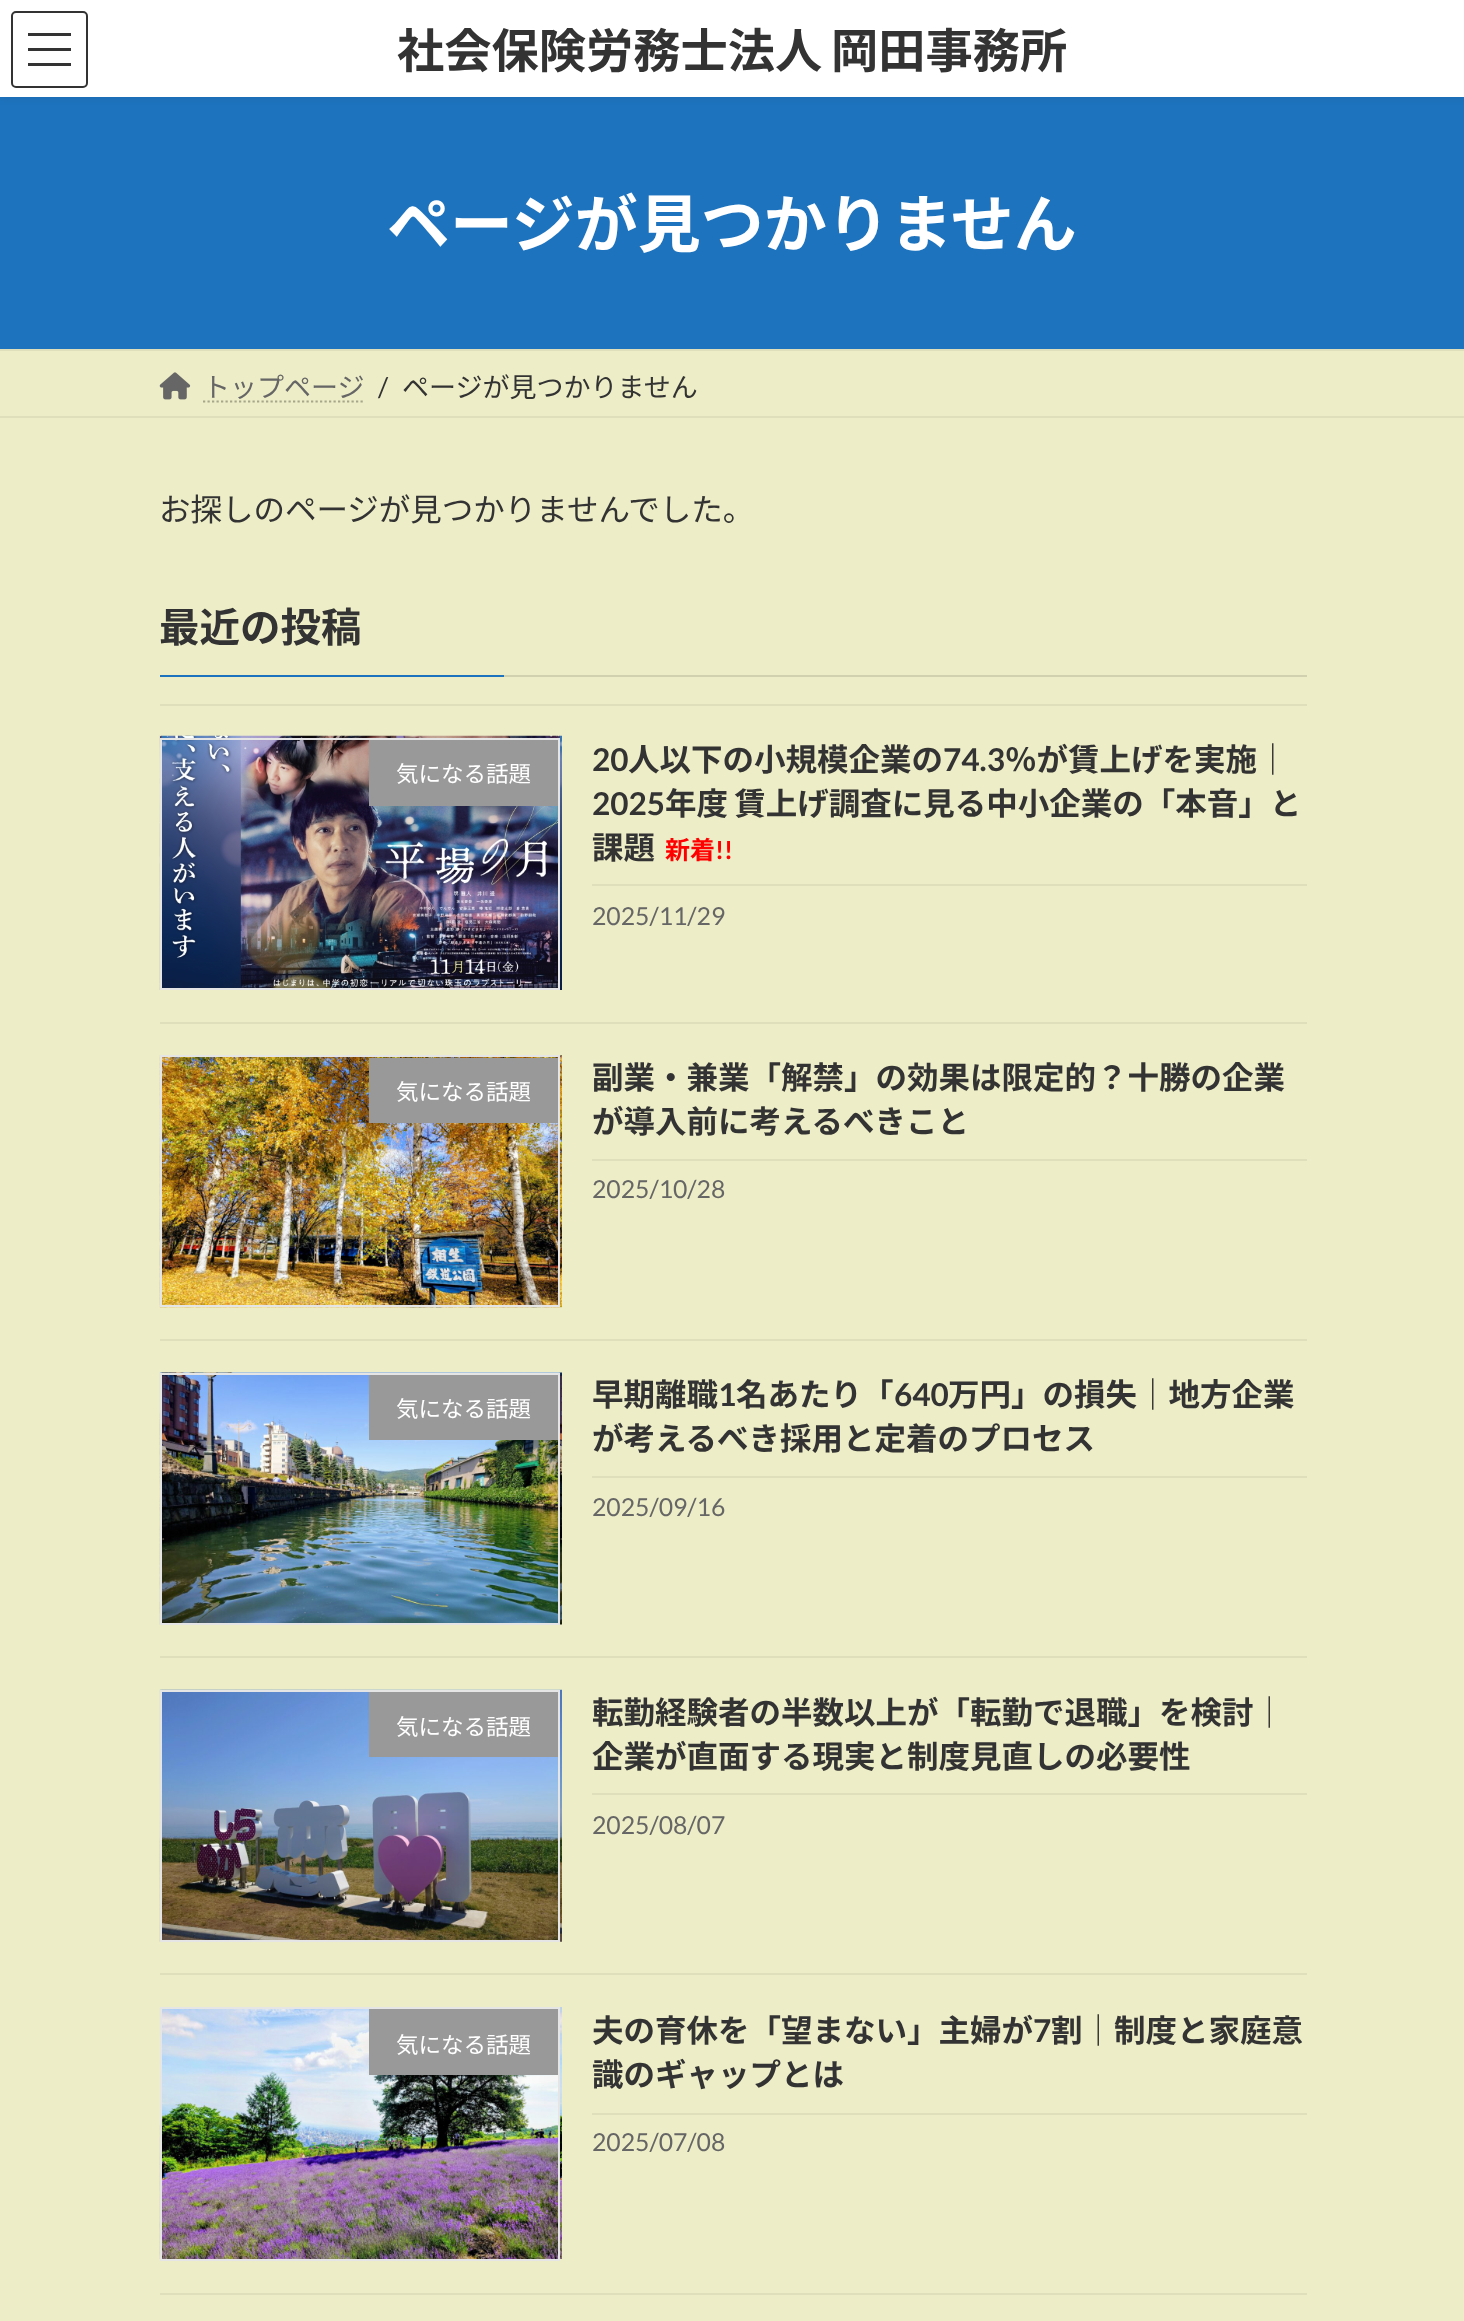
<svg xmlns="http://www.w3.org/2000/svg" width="1464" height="2321">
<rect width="100%" height="100%" fill="#ededc7"/>
<rect y="97" width="1464" height="252" fill="#1e73be"/>
<rect y="2" width="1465" height="97" fill="#0000000d" filter="blur(3.5px)"/>
<rect width="1464" height="97" fill="#fff"/>
<rect x="28" y="33" width="43" height="3" fill="#333"/>
<rect x="28" y="48" width="43" height="3" fill="#333"/>
<rect x="28" y="63" width="43" height="3" fill="#333"/>
<rect x="12" y="12" width="75" height="75" rx="4" fill="none" stroke="#333" stroke-width="2"/>
<text x="397" y="68" word-spacing="-2" style="font-family:Noto Sans JP;font-size:47.25px;font-weight:bold;fill:#333">社会保険労務士法人 岡田事務所</text>
<text x="387" y="247" style="font-family:Noto Sans JP;font-size:63px;font-weight:bold;fill:#fff">ページが見つかりません</text>
<rect y="349" width="1464" height="2" fill="#dfdfbb"/>
<rect y="416" width="1464" height="2" fill="#dfdfbb"/>
<image x="159" y="372" width="32" height="28" href="media/1.png"/>
<text x="203" y="397" style="font-family:Noto Sans JP;font-size:27px;fill:#666">トップページ</text>
<path d="M203 401.5h161.5" fill="none" stroke="#a6a68b" stroke-width="2.2" stroke-dasharray="2.25 2.25"/>
<text x="378" y="397" style="font-family:Lato;font-size:27px;fill:#333">/</text>
<text x="402" y="397" style="font-family:Noto Sans JP;font-size:27px;fill:#333">ページが見つかりません</text>
<text x="159" y="521" style="font-family:Noto Sans JP;font-size:31.5px;fill:#333">お探しのページが見つかりませんでした。</text>
<rect x="504" y="675" width="803" height="2" fill="#d1d1af"/>
<text x="159" y="642" style="font-family:Noto Sans JP;font-size:40.5px;font-weight:bold;fill:#333">最近の投稿</text>
<rect x="160" y="675" width="344" height="2" fill="#1e73be"/>
<rect x="160" y="704" width="1147" height="2" fill="#dfdfbb"/>
<rect x="160" y="1022" width="1147" height="2" fill="#dfdfbb"/>
<image x="159" y="735" width="403" height="255" href="media/2.png"/>
<rect x="161" y="739" width="398" height="250" fill="none" stroke="#e5e5e5" stroke-width="2"/>
<rect x="369" y="740" width="189" height="66" fill="#999"/>
<text x="396" y="782" style="font-family:Noto Sans JP;font-size:22.5px;fill:#fff">気になる話題</text>
<rect x="592" y="884" width="715" height="2" fill="#dfdfbb"/>
<text x="592" y="771" style="font-family:Lato;font-size:31.5px;font-weight:bold;fill:#333">20</text>
<text x="628" y="771" style="font-family:Noto Sans JP;font-size:31.5px;font-weight:bold;fill:#333">人以下の小規模企業の</text>
<text x="943" y="771" style="font-family:Lato;font-size:31.5px;font-weight:bold;fill:#333">74.3</text>
<text x="1005" y="771" style="font-family:Noto Sans JP;font-size:31.5px;font-weight:bold;fill:#333">％が賃上げを実施｜</text>
<text x="592" y="815" style="font-family:Lato;font-size:31.5px;font-weight:bold;fill:#333">2025</text>
<text x="665" y="815" word-spacing="-1" style="font-family:Noto Sans JP;font-size:31.5px;font-weight:bold;fill:#333">年度 賃上げ調査に見る中小企業の「本音」と</text>
<text x="592" y="859" style="font-family:Noto Sans JP;font-size:31.5px;font-weight:bold;fill:#333">課題</text>
<text x="665" y="859" style="font-family:Noto Sans JP;font-size:25px;font-weight:bold;fill:#f00">新着</text>
<text x="715" y="859" style="font-family:Lato;font-size:25px;font-weight:bold;fill:#f00">!!</text>
<text x="592" y="925" style="font-family:Lato;font-size:24.75px;fill:#666">2025/11/29</text>
<rect x="160" y="1339" width="1147" height="2" fill="#dfdfbb"/>
<image x="159" y="1055" width="403" height="253" href="media/3.png"/>
<rect x="161" y="1056" width="398" height="250" fill="none" stroke="#e5e5e5" stroke-width="2"/>
<rect x="369" y="1058" width="189" height="65" fill="#999"/>
<text x="396" y="1100" style="font-family:Noto Sans JP;font-size:22.5px;fill:#fff">気になる話題</text>
<rect x="592" y="1159" width="715" height="2" fill="#dfdfbb"/>
<text x="592" y="1089" style="font-family:Noto Sans JP;font-size:31.5px;font-weight:bold;fill:#333">副業・兼業「解禁」の効果は限定的？十勝の企業</text>
<text x="592" y="1133" style="font-family:Noto Sans JP;font-size:31.5px;font-weight:bold;fill:#333">が導入前に考えるべきこと</text>
<text x="592" y="1198" style="font-family:Lato;font-size:24.75px;fill:#666">2025/10/28</text>
<rect x="160" y="1656" width="1147" height="2" fill="#dfdfbb"/>
<image x="159" y="1372" width="403" height="253" href="media/4.png"/>
<rect x="161" y="1374" width="398" height="250" fill="none" stroke="#e5e5e5" stroke-width="2"/>
<rect x="369" y="1375" width="189" height="65" fill="#999"/>
<text x="396" y="1417" style="font-family:Noto Sans JP;font-size:22.5px;fill:#fff">気になる話題</text>
<rect x="592" y="1476" width="715" height="2" fill="#dfdfbb"/>
<text x="592" y="1406" style="font-family:Noto Sans JP;font-size:31.5px;font-weight:bold;fill:#333">早期離職</text>
<text x="718" y="1406" style="font-family:Lato;font-size:31.5px;font-weight:bold;fill:#333">1</text>
<text x="736" y="1406" style="font-family:Noto Sans JP;font-size:31.5px;font-weight:bold;fill:#333">名あたり「</text>
<text x="894" y="1406" style="font-family:Lato;font-size:31.5px;font-weight:bold;fill:#333">640</text>
<text x="948" y="1406" style="font-family:Noto Sans JP;font-size:31.5px;font-weight:bold;fill:#333">万円」の損失｜地方企業</text>
<text x="592" y="1450" style="font-family:Noto Sans JP;font-size:31.5px;font-weight:bold;fill:#333">が考えるべき採用と定着のプロセス</text>
<text x="592" y="1516" style="font-family:Lato;font-size:24.75px;fill:#666">2025/09/16</text>
<rect x="160" y="1973" width="1147" height="2" fill="#dfdfbb"/>
<image x="159" y="1689" width="403" height="253" href="media/5.png"/>
<rect x="161" y="1691" width="398" height="250" fill="none" stroke="#e5e5e5" stroke-width="2"/>
<rect x="369" y="1692" width="189" height="65" fill="#999"/>
<text x="396" y="1735" style="font-family:Noto Sans JP;font-size:22.5px;fill:#fff">気になる話題</text>
<rect x="592" y="1793" width="715" height="2" fill="#dfdfbb"/>
<text x="592" y="1724" style="font-family:Noto Sans JP;font-size:31.5px;font-weight:bold;fill:#333">転勤経験者の半数以上が「転勤で退職」を検討｜</text>
<text x="592" y="1768" style="font-family:Noto Sans JP;font-size:31.5px;font-weight:bold;fill:#333">企業が直面する現実と制度見直しの必要性</text>
<text x="592" y="1834" style="font-family:Lato;font-size:24.75px;fill:#666">2025/08/07</text>
<rect x="160" y="2293" width="1147" height="2" fill="#dfdfbb"/>
<image x="159" y="2007" width="403" height="252" href="media/6.png"/>
<rect x="161" y="2008" width="398" height="252" fill="none" stroke="#e5e5e5" stroke-width="2"/>
<rect x="369" y="2009" width="189" height="66" fill="#999"/>
<text x="396" y="2053" style="font-family:Noto Sans JP;font-size:22.5px;fill:#fff">気になる話題</text>
<rect x="592" y="2113" width="715" height="2" fill="#dfdfbb"/>
<text x="592" y="2042" style="font-family:Noto Sans JP;font-size:31.5px;font-weight:bold;fill:#333">夫の育休を「望まない」主婦が</text>
<text x="1033" y="2042" style="font-family:Lato;font-size:31.5px;font-weight:bold;fill:#333">7</text>
<text x="1051" y="2042" style="font-family:Noto Sans JP;font-size:31.5px;font-weight:bold;fill:#333">割｜制度と家庭意</text>
<text x="592" y="2086" style="font-family:Noto Sans JP;font-size:31.5px;font-weight:bold;fill:#333">識のギャップとは</text>
<text x="592" y="2151" style="font-family:Lato;font-size:24.75px;fill:#666">2025/07/08</text>
</svg>
